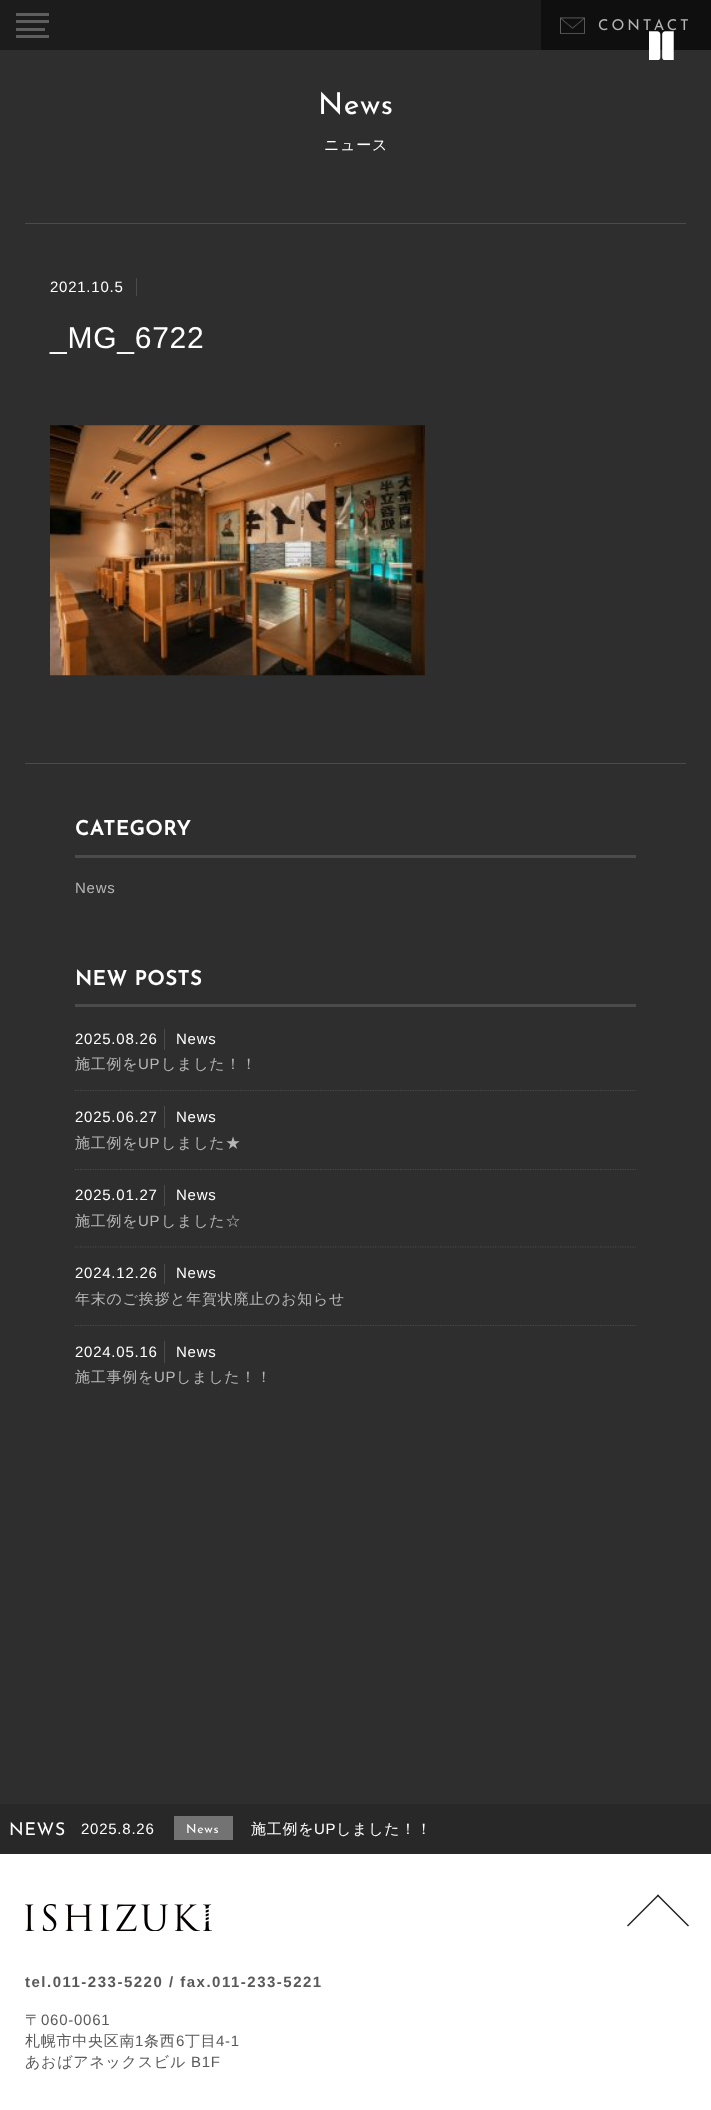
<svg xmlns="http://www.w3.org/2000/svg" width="711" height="2110">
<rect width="100%" height="100%" fill="#2e2e2e"/>
<rect width="541" height="50" fill="#1c1c1c"/>
<rect x="16" y="13" width="33" height="3" fill="#5e5e5e"/>
<rect x="16" y="20" width="33" height="3" fill="#5e5e5e"/>
<rect x="16" y="28" width="29" height="3" fill="#5e5e5e"/>
<rect x="16" y="35" width="33" height="3" fill="#5e5e5e"/>
<rect x="541" width="170" height="50" fill="#0f0f0f"/>
<image x="560" y="17" width="25" height="17" href="media/1.png"/>
<text x="598" y="30" style="font-family:Josefin Sans;font-size:15px;letter-spacing:3px;fill:#b6b6b6">CONTACT</text>
<image x="649" y="31" width="25" height="29" href="media/2.png"/>
<text x="318" y="114" style="font-family:Josefin Sans;font-size:30px;letter-spacing:0.75px;fill:#fff">News</text>
<text x="324" y="150" style="font-family:WenQuanYi Zen Hei;font-size:15px;font-weight:500;letter-spacing:0.75px;fill:#fff">ニュース</text>
<rect x="25" y="223" width="661" height="1" fill="#4b4b4b"/>
<rect x="136" y="278" width="1" height="18" fill="#4b4b4b"/>
<text x="50" y="292" style="font-family:Liberation Sans;font-size:15px;letter-spacing:0.75px;fill:#fff">2021.10.5</text>
<text x="50" y="348" style="font-family:Liberation Sans;font-size:30px;letter-spacing:0.75px;fill:#fff">_MG_6722</text>
<image x="50" y="425" width="375" height="251" href="media/3.png"/>
<rect x="25" y="763" width="661" height="1" fill="#4b4b4b"/>
<rect x="75" y="855" width="561" height="3" fill="#4b4b4b"/>
<text x="75" y="835" style="font-family:Josefin Sans;font-size:20px;font-weight:bold;letter-spacing:0.75px;fill:#fff">CATEGORY</text>
<text x="75" y="893" style="font-family:Liberation Sans;font-size:15px;letter-spacing:0.75px;fill:#b6b6b6">News</text>
<rect x="75" y="1004" width="561" height="3" fill="#4b4b4b"/>
<text x="75" y="985" style="font-family:Josefin Sans;font-size:20px;font-weight:bold;letter-spacing:0.75px;fill:#fff">NEW POSTS</text>
<path d="M75 1090.5h561" fill="none" stroke="#4b4b4b" stroke-width="1.2" stroke-dasharray="1.25 1.25"/>
<rect x="164" y="1029" width="1" height="21" fill="#4b4b4b"/>
<text x="75" y="1044" style="font-family:Liberation Sans;font-size:15px;letter-spacing:0.75px;fill:#fff">2025.08.26</text>
<text x="176" y="1044" style="font-family:Liberation Sans;font-size:15px;letter-spacing:0.75px;fill:#fff">News</text>
<text x="75" y="1069" style="font-family:WenQuanYi Zen Hei;font-size:15px;font-weight:500;letter-spacing:0.75px;fill:#b6b6b6">施工例を</text>
<text x="138" y="1069" style="font-family:Liberation Sans;font-size:15px;letter-spacing:0.75px;fill:#b6b6b6">UP</text>
<text x="161" y="1069" style="font-family:WenQuanYi Zen Hei;font-size:15px;font-weight:500;letter-spacing:0.75px;fill:#b6b6b6">しました！！</text>
<path d="M75 1169.5h561" fill="none" stroke="#4b4b4b" stroke-width="1.2" stroke-dasharray="1.25 1.25"/>
<rect x="164" y="1106" width="1" height="22" fill="#4b4b4b"/>
<text x="75" y="1122" style="font-family:Liberation Sans;font-size:15px;letter-spacing:0.75px;fill:#fff">2025.06.27</text>
<text x="176" y="1122" style="font-family:Liberation Sans;font-size:15px;letter-spacing:0.75px;fill:#fff">News</text>
<text x="75" y="1148" style="font-family:WenQuanYi Zen Hei;font-size:15px;font-weight:500;letter-spacing:0.75px;fill:#b6b6b6">施工例を</text>
<text x="138" y="1148" style="font-family:Liberation Sans;font-size:15px;letter-spacing:0.75px;fill:#b6b6b6">UP</text>
<text x="161" y="1148" style="font-family:WenQuanYi Zen Hei;font-size:15px;font-weight:500;letter-spacing:0.75px;fill:#b6b6b6">しました★</text>
<path d="M75 1247h561" fill="none" stroke="#4b4b4b" stroke-width="1.2" stroke-dasharray="1.25 1.25"/>
<rect x="164" y="1185" width="1" height="21" fill="#4b4b4b"/>
<text x="75" y="1200" style="font-family:Liberation Sans;font-size:15px;letter-spacing:0.75px;fill:#fff">2025.01.27</text>
<text x="176" y="1200" style="font-family:Liberation Sans;font-size:15px;letter-spacing:0.75px;fill:#fff">News</text>
<text x="75" y="1226" style="font-family:WenQuanYi Zen Hei;font-size:15px;font-weight:500;letter-spacing:0.75px;fill:#b6b6b6">施工例を</text>
<text x="138" y="1226" style="font-family:Liberation Sans;font-size:15px;letter-spacing:0.75px;fill:#b6b6b6">UP</text>
<text x="161" y="1226" style="font-family:WenQuanYi Zen Hei;font-size:15px;font-weight:500;letter-spacing:0.75px;fill:#b6b6b6">しました☆</text>
<path d="M75 1325.5h561" fill="none" stroke="#4b4b4b" stroke-width="1.2" stroke-dasharray="1.25 1.25"/>
<rect x="164" y="1264" width="1" height="20" fill="#4b4b4b"/>
<text x="75" y="1278" style="font-family:Liberation Sans;font-size:15px;letter-spacing:0.75px;fill:#fff">2024.12.26</text>
<text x="176" y="1278" style="font-family:Liberation Sans;font-size:15px;letter-spacing:0.75px;fill:#fff">News</text>
<text x="75" y="1304" style="font-family:WenQuanYi Zen Hei;font-size:15px;font-weight:500;letter-spacing:0.75px;fill:#b6b6b6">年末のご挨拶と年賀状廃止のお知らせ</text>
<rect x="164" y="1341" width="1" height="22" fill="#4b4b4b"/>
<text x="75" y="1357" style="font-family:Liberation Sans;font-size:15px;letter-spacing:0.75px;fill:#fff">2024.05.16</text>
<text x="176" y="1357" style="font-family:Liberation Sans;font-size:15px;letter-spacing:0.75px;fill:#fff">News</text>
<text x="75" y="1382" style="font-family:WenQuanYi Zen Hei;font-size:15px;font-weight:500;letter-spacing:0.75px;fill:#b6b6b6">施工事例を</text>
<text x="154" y="1382" style="font-family:Liberation Sans;font-size:15px;letter-spacing:0.75px;fill:#b6b6b6">UP</text>
<text x="176" y="1382" style="font-family:WenQuanYi Zen Hei;font-size:15px;font-weight:500;letter-spacing:0.75px;fill:#b6b6b6">しました！！</text>
<rect y="1804" width="711" height="50" fill="#282828"/>
<text x="9" y="1835" style="font-family:Josefin Sans;font-size:17.5px;letter-spacing:0.75px;fill:#fff">NEWS</text>
<text x="81" y="1834" style="font-family:Liberation Sans;font-size:15px;letter-spacing:0.75px;fill:#fff">2025.8.26</text>
<rect x="174" y="1816" width="59" height="24" fill="#737373"/>
<text x="186" y="1833" style="font-family:Josefin Sans;font-size:12.5px;letter-spacing:0.75px;fill:#fff">News</text>
<text x="251" y="1834" style="font-family:WenQuanYi Zen Hei;font-size:15px;font-weight:500;letter-spacing:0.75px;fill:#fff">施工例を</text>
<text x="314" y="1834" style="font-family:Liberation Sans;font-size:15px;letter-spacing:0.75px;fill:#fff">UP</text>
<text x="336" y="1834" style="font-family:WenQuanYi Zen Hei;font-size:15px;font-weight:500;letter-spacing:0.75px;fill:#fff">しました！！</text>
<rect y="1854" width="711" height="256" fill="#fff"/>
<image x="25" y="1904" width="187" height="27" href="media/4.png"/>
<path d="M658 1894.5l31 31l-1 1l-31-31z" fill="#221e1f"/>
<path d="M658 1894.5l1 1l-31 31l-1-1z" fill="#221e1f"/>
<text x="25" y="1987" style="font-family:Liberation Sans;font-size:15px;font-weight:bold;letter-spacing:1.5px;fill:#595959">tel.011-233-5220 / fax.011-233-5221</text>
<text x="25" y="2025" style="font-family:WenQuanYi Zen Hei;font-size:15px;font-weight:500;letter-spacing:0.75px;fill:#595959">〒</text>
<text x="41" y="2025" style="font-family:Liberation Sans;font-size:15px;letter-spacing:0.75px;fill:#595959">060-0061</text>
<text x="25" y="2046" style="font-family:WenQuanYi Zen Hei;font-size:15px;font-weight:500;letter-spacing:0.75px;fill:#595959">札幌市中央区南</text>
<text x="135" y="2046" style="font-family:Liberation Sans;font-size:15px;letter-spacing:0.75px;fill:#595959">1</text>
<text x="144" y="2046" style="font-family:WenQuanYi Zen Hei;font-size:15px;font-weight:500;letter-spacing:0.75px;fill:#595959">条西</text>
<text x="176" y="2046" style="font-family:Liberation Sans;font-size:15px;letter-spacing:0.75px;fill:#595959">6</text>
<text x="185" y="2046" style="font-family:WenQuanYi Zen Hei;font-size:15px;font-weight:500;letter-spacing:0.75px;fill:#595959">丁目</text>
<text x="216" y="2046" style="font-family:Liberation Sans;font-size:15px;letter-spacing:0.75px;fill:#595959">4-1</text>
<text x="25" y="2067" style="font-family:WenQuanYi Zen Hei;font-size:15px;font-weight:500;letter-spacing:0.75px;fill:#595959">あおばアネックスビル</text>
<text x="191" y="2067" style="font-family:Liberation Sans;font-size:15px;letter-spacing:0.75px;fill:#595959">B1F</text>
</svg>
